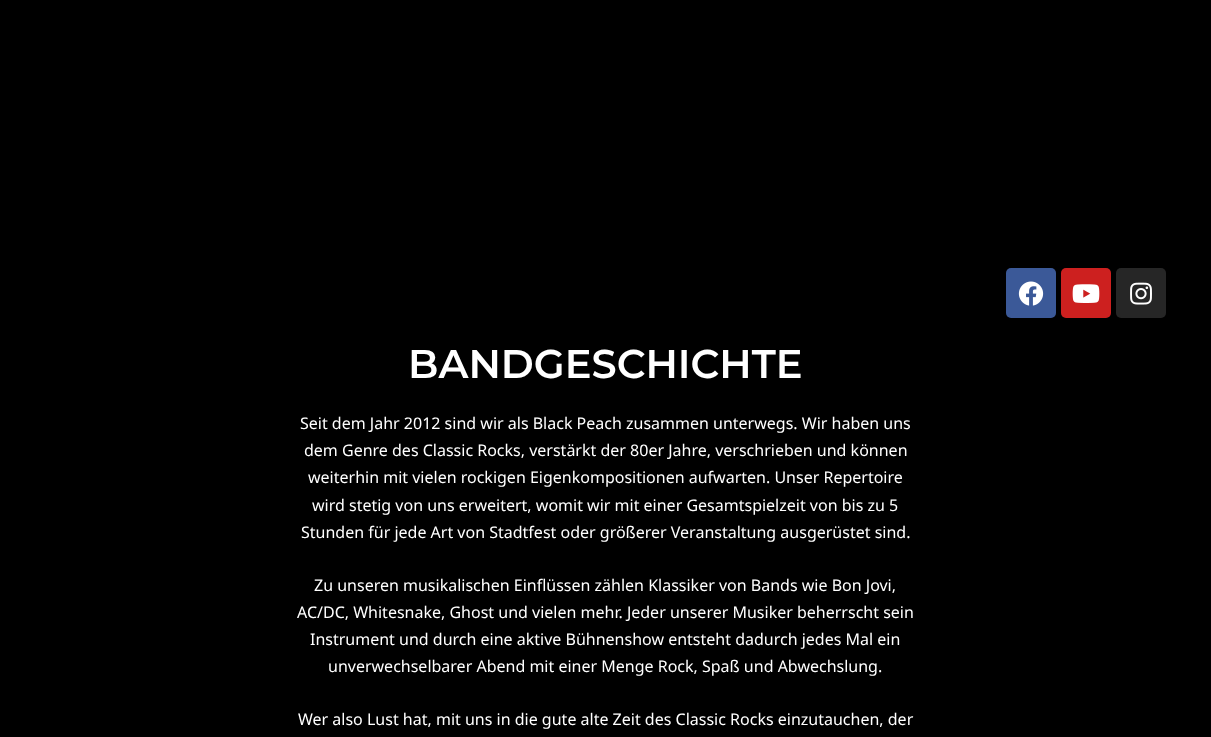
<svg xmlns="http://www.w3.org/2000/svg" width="1211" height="737">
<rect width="100%" height="100%" fill="#000"/>
<rect x="1006" y="268" width="50" height="50" rx="5" fill="#3b5998"/>
<image x="1018" y="281" width="26" height="25" href="media/1.png"/>
<rect x="1061" y="268" width="50" height="50" rx="5" fill="#cd201f"/>
<image x="1072" y="284" width="28" height="19" href="media/2.png"/>
<rect x="1116" y="268" width="50" height="50" rx="5" fill="#262626"/>
<image x="1130" y="282" width="22" height="23" href="media/3.png"/>
<text x="408" y="378" style="font-family:Montserrat;font-size:40px;font-weight:600;fill:#fff">BANDGESCHICHTE</text>
<text x="300" y="429" style="font-family:Noto Sans;font-size:16px;fill:#fff">Seit dem Jahr 2012 sind wir als Black Peach zusammen unterwegs. Wir haben uns</text>
<text x="304" y="456" style="font-family:Noto Sans;font-size:16px;fill:#fff">dem Genre des Classic Rocks, verstärkt der 80er Jahre, verschrieben und können</text>
<text x="308" y="483" style="font-family:Noto Sans;font-size:16px;fill:#fff">weiterhin mit vielen rockigen Eigenkompositionen aufwarten. Unser Repertoire</text>
<text x="312" y="511" style="font-family:Noto Sans;font-size:16px;fill:#fff">wird stetig von uns erweitert, womit wir mit einer Gesamtspielzeit von bis zu 5</text>
<text x="301" y="538" style="font-family:Noto Sans;font-size:16px;fill:#fff">Stunden für jede Art von Stadtfest oder größerer Veranstaltung ausgerüstet sind.</text>
<text x="314" y="591" style="font-family:Noto Sans;font-size:16px;fill:#fff">Zu unseren musikalischen Einflüssen zählen Klassiker von Bands wie Bon Jovi,</text>
<text x="297" y="618" style="font-family:Noto Sans;font-size:16px;fill:#fff">AC/DC, Whitesnake, Ghost und vielen mehr. Jeder unserer Musiker beherrscht sein</text>
<text x="310" y="645" style="font-family:Noto Sans;font-size:16px;fill:#fff">Instrument und durch eine aktive Bühnenshow entsteht dadurch jedes Mal ein</text>
<text x="328" y="672" style="font-family:Noto Sans;font-size:16px;fill:#fff">unverwechselbarer Abend mit einer Menge Rock, Spaß und Abwechslung.</text>
<text x="298" y="725" style="font-family:Noto Sans;font-size:16px;fill:#fff">Wer also Lust hat, mit uns in die gute alte Zeit des Classic Rocks einzutauchen, der</text>
</svg>
